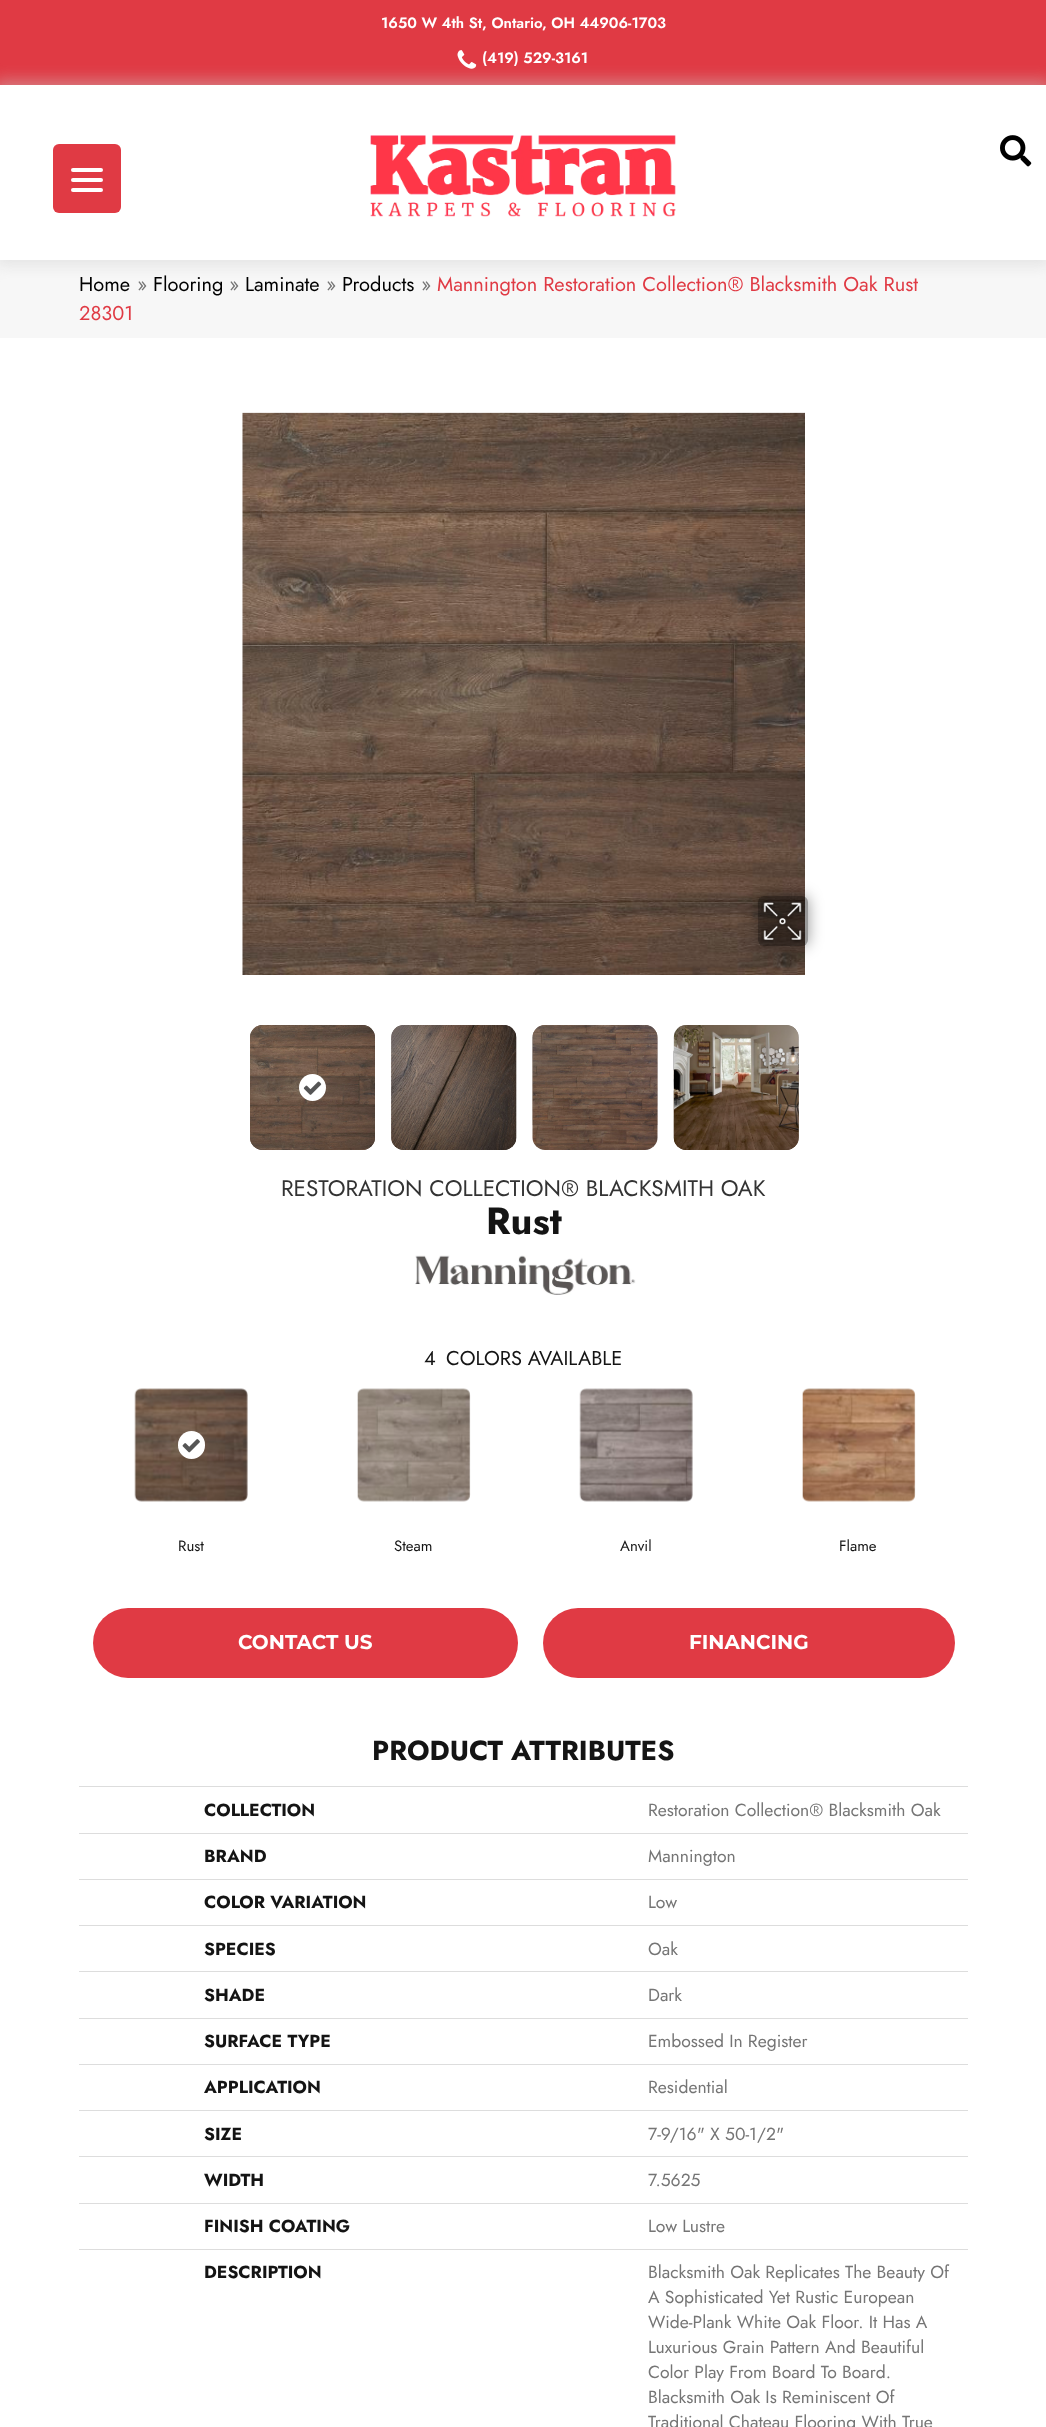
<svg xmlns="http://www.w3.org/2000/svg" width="1046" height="2427">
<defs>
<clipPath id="clip1"><path d="M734 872h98v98h-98zm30 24h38c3.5 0 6 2.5 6 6v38c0 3.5-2.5 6-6 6h-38c-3.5 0-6-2.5-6-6v-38c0-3.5 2.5-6 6-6z" clip-rule="evenodd"/></clipPath>
</defs>
<rect width="100%" height="100%" fill="#fff"/>
<rect width="1046" height="85" fill="#e03a44"/>
<text x="381" y="28" style="font-family:Jost;font-size:15px;font-weight:600;fill:#fff">1650 W 4th St, Ontario, OH 44906-1703</text>
<image x="457" y="50" width="20" height="19" href="media/1.png"/>
<text x="482" y="63" style="font-family:Jost;font-size:15px;font-weight:600;fill:#fff">(419) 529-3161</text>
<rect y="260" width="1046" height="78" fill="#f7f7f7"/>
<rect x="-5" y="80" width="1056" height="185" fill="#cccccc73" filter="blur(7.5px)"/>
<rect y="85" width="1046" height="175" fill="#fff"/>
<image x="370" y="135" width="306" height="82" href="media/2.png"/>
<image x="1000" y="135" width="32" height="32" href="media/3.png"/>
<text x="79" y="291" style="font-family:Jost;font-size:20px;fill:#000">Home</text>
<text x="137" y="291" style="font-family:Jost;font-size:20px;fill:#757575">»</text>
<text x="153" y="291" style="font-family:Jost;font-size:20px;fill:#000">Flooring</text>
<text x="229" y="291" style="font-family:Jost;font-size:20px;fill:#757575">»</text>
<text x="245" y="291" style="font-family:Jost;font-size:20px;fill:#000">Laminate</text>
<text x="326" y="291" style="font-family:Jost;font-size:20px;fill:#757575">»</text>
<text x="342" y="291" style="font-family:Jost;font-size:20px;fill:#000">Products</text>
<text x="421" y="291" style="font-family:Jost;font-size:20px;fill:#757575">»</text>
<text x="437" y="291" style="font-family:Jost;font-size:20px;fill:#e03a44">Mannington Restoration Collection® Blacksmith Oak Rust</text>
<text x="79" y="320" style="font-family:Jost;font-size:20px;fill:#e03a44">28301</text>
<image x="242" y="412" width="563" height="563" href="media/4.png"/>
<g clip-path="url(#clip1)">
<rect x="758" y="896" width="50" height="50" rx="6" fill="#00000069" filter="blur(7.5px)"/>
</g>
<rect x="758" y="896" width="50" height="50" rx="6" fill="#00000066"/>
<image x="761" y="900" width="45" height="43" href="media/5.png"/>
<image x="250" y="1025" width="125" height="125" href="media/6.png"/>
<image x="250" y="1025" width="125" height="125" href="media/7.png"/>
<circle cx="312.5" cy="1087.5" r="13.5" fill="#fff"/>
<image x="303" y="1081" width="19" height="14" href="media/8.png"/>
<image x="391" y="1025" width="126" height="125" href="media/9.png"/>
<image x="391" y="1025" width="126" height="125" href="media/10.png"/>
<image x="532" y="1025" width="126" height="125" href="media/11.png"/>
<image x="532" y="1025" width="126" height="100" href="media/12.png"/>
<image x="673" y="1025" width="126" height="125" href="media/13.png"/>
<image x="673" y="1025" width="126" height="125" href="media/14.png"/>
<text x="281" y="1196" style="font-family:Jost;font-size:22.5px;fill:#333">RESTORATION COLLECTION® BLACKSMITH OAK</text>
<text x="486" y="1234" style="font-family:Jost;font-size:38px;font-weight:bold;fill:#141414">Rust</text>
<image x="415" y="1255" width="221" height="40" href="media/15.png"/>
<text x="424" y="1365" style="font-family:Jost;font-size:20px;fill:#141414">4</text>
<text x="446" y="1365" style="font-family:Jost;font-size:20px;fill:#141414">COLORS AVAILABLE</text>
<image x="134" y="1388" width="114" height="114" href="media/16.png"/>
<rect x="178" y="1431" width="27" height="28" rx="13.5" fill="#fff"/>
<image x="182" y="1439" width="18" height="14" href="media/17.png"/>
<text x="178" y="1551" style="font-family:Jost;font-size:15px;fill:#141414">Rust</text>
<image x="357" y="1388" width="114" height="114" href="media/18.png"/>
<text x="394" y="1551" style="font-family:Jost;font-size:15px;fill:#141414">Steam</text>
<image x="579" y="1388" width="114" height="114" href="media/19.png"/>
<text x="620" y="1551" style="font-family:Jost;font-size:15px;fill:#141414">Anvil</text>
<image x="802" y="1388" width="114" height="114" href="media/20.png"/>
<text x="839" y="1551" style="font-family:Jost;font-size:15px;fill:#141414">Flame</text>
<rect x="93" y="1608" width="425" height="70" rx="35" fill="#e03a44"/>
<text x="238" y="1649" style="font-family:Montserrat;font-size:20px;font-weight:100;fill:#fff">CONTACT US</text>
<rect x="543" y="1608" width="412" height="70" rx="35" fill="#e03a44"/>
<text x="689" y="1649" style="font-family:Montserrat;font-size:20px;font-weight:100;fill:#fff">FINANCING</text>
<text x="372" y="1760" style="font-family:Jost;font-size:27.5px;font-weight:bold;fill:#141414">PRODUCT ATTRIBUTES</text>
<text x="204" y="1816" style="font-family:Jost;font-size:17.5px;font-weight:bold;fill:#141414">COLLECTION</text>
<rect x="79" y="1786" width="889" height="1" fill="#ddd"/>
<text x="648" y="1816" style="font-family:Jost;font-size:17.5px;fill:#757575">Restoration Collection® Blacksmith Oak</text>
<text x="204" y="1862" style="font-family:Jost;font-size:17.5px;font-weight:bold;fill:#141414">BRAND</text>
<rect x="79" y="1833" width="889" height="1" fill="#ddd"/>
<text x="648" y="1862" style="font-family:Jost;font-size:17.5px;fill:#757575">Mannington</text>
<text x="204" y="1908" style="font-family:Jost;font-size:17.5px;font-weight:bold;fill:#141414">COLOR VARIATION</text>
<rect x="79" y="1879" width="889" height="1" fill="#ddd"/>
<text x="648" y="1908" style="font-family:Jost;font-size:17.5px;fill:#757575">Low</text>
<text x="204" y="1955" style="font-family:Jost;font-size:17.5px;font-weight:bold;fill:#141414">SPECIES</text>
<rect x="79" y="1925" width="889" height="1" fill="#ddd"/>
<text x="648" y="1955" style="font-family:Jost;font-size:17.5px;fill:#757575">Oak</text>
<text x="204" y="2001" style="font-family:Jost;font-size:17.5px;font-weight:bold;fill:#141414">SHADE</text>
<rect x="79" y="1971" width="889" height="1" fill="#ddd"/>
<text x="648" y="2001" style="font-family:Jost;font-size:17.5px;fill:#757575">Dark</text>
<text x="204" y="2047" style="font-family:Jost;font-size:17.5px;font-weight:bold;fill:#141414">SURFACE TYPE</text>
<rect x="79" y="2018" width="889" height="1" fill="#ddd"/>
<text x="648" y="2047" style="font-family:Jost;font-size:17.5px;fill:#757575">Embossed In Register</text>
<text x="204" y="2093" style="font-family:Jost;font-size:17.5px;font-weight:bold;fill:#141414">APPLICATION</text>
<rect x="79" y="2064" width="889" height="1" fill="#ddd"/>
<text x="648" y="2093" style="font-family:Jost;font-size:17.5px;fill:#757575">Residential</text>
<text x="204" y="2140" style="font-family:Jost;font-size:17.5px;font-weight:bold;fill:#141414">SIZE</text>
<rect x="79" y="2110" width="889" height="1" fill="#ddd"/>
<text x="648" y="2140" style="font-family:Jost;font-size:17.5px;fill:#757575">7-9/16" X 50-1/2"</text>
<text x="204" y="2186" style="font-family:Jost;font-size:17.5px;font-weight:bold;fill:#141414">WIDTH</text>
<rect x="79" y="2156" width="889" height="1" fill="#ddd"/>
<text x="648" y="2186" style="font-family:Jost;font-size:17.5px;fill:#757575">7.5625</text>
<text x="204" y="2232" style="font-family:Jost;font-size:17.5px;font-weight:bold;fill:#141414">FINISH COATING</text>
<rect x="79" y="2203" width="889" height="1" fill="#ddd"/>
<text x="648" y="2232" style="font-family:Jost;font-size:17.5px;fill:#757575">Low Lustre</text>
<text x="204" y="2278" style="font-family:Jost;font-size:17.5px;font-weight:bold;fill:#141414">DESCRIPTION</text>
<rect x="79" y="2249" width="889" height="1" fill="#ddd"/>
<text x="648" y="2278" style="font-family:Jost;font-size:17.5px;fill:#757575">Blacksmith Oak Replicates The Beauty Of</text>
<text x="648" y="2303" style="font-family:Jost;font-size:17.5px;fill:#757575">A Sophisticated Yet Rustic European</text>
<text x="648" y="2328" style="font-family:Jost;font-size:17.5px;fill:#757575">Wide-Plank White Oak Floor. It Has A</text>
<text x="648" y="2353" style="font-family:Jost;font-size:17.5px;fill:#757575">Luxurious Grain Pattern And Beautiful</text>
<text x="648" y="2378" style="font-family:Jost;font-size:17.5px;fill:#757575">Color Play From Board To Board.</text>
<text x="648" y="2403" style="font-family:Jost;font-size:17.5px;fill:#757575">Blacksmith Oak Is Reminiscent Of</text>
<text x="648" y="2428" style="font-family:Jost;font-size:17.5px;fill:#757575">Traditional Chateau Flooring With True</text>
<rect x="53" y="144" width="68" height="69" rx="6" fill="#e03a44"/>
<rect x="71" y="178" width="32" height="4" rx="2" fill="#fff"/>
<rect x="71" y="168" width="32" height="4" rx="2" fill="#fff"/>
<rect x="71" y="188" width="32" height="4" rx="2" fill="#fff"/>
</svg>
